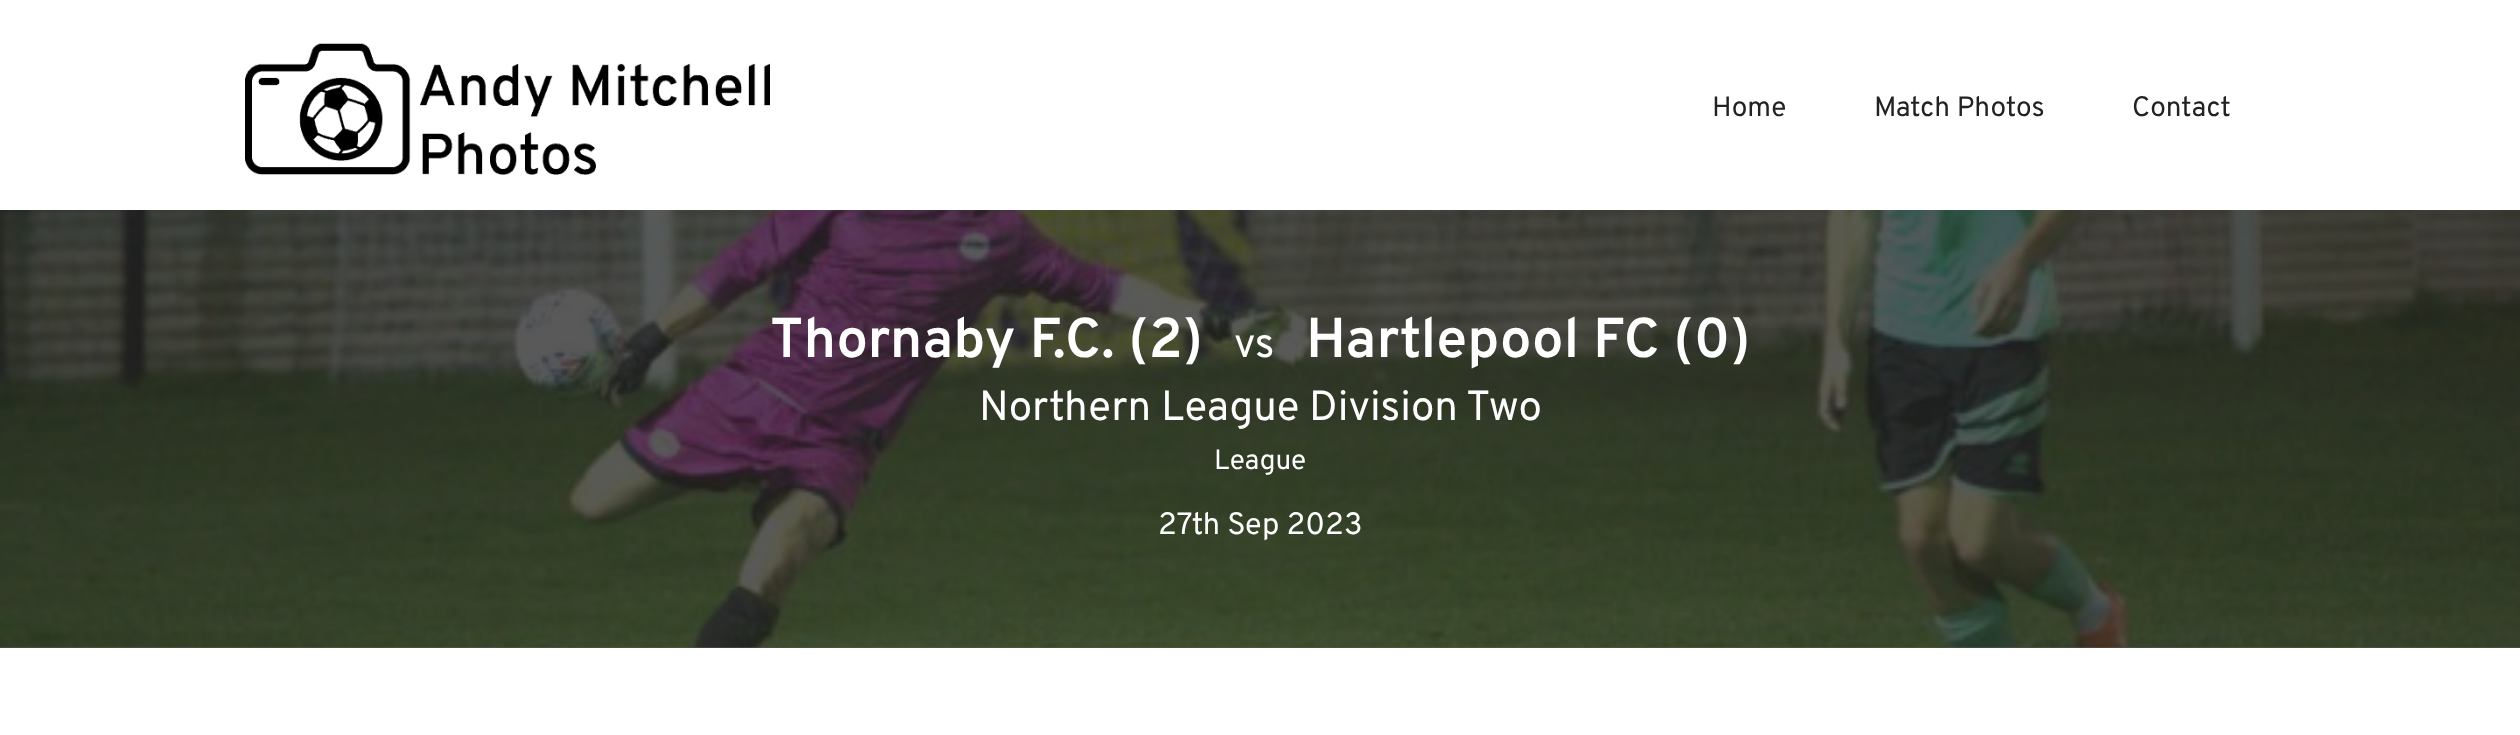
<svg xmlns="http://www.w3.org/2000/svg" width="2520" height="735">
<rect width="100%" height="100%" fill="#fff"/>
<rect y="647" width="2520" height="1" fill="#595959"/>
<image x="245" y="43" width="525" height="132" href="media/1.png"/>
<text x="1712" y="116" style="font-family:Overpass;font-size:28px;fill:#222">Home</text>
<text x="1874" y="116" style="font-family:Overpass;font-size:28px;fill:#222">Match Photos</text>
<text x="2132" y="116" style="font-family:Overpass;font-size:28px;fill:#222">Contact</text>
<image x="0" y="210" width="2520" height="438" href="media/2.png"/>
<text x="770" y="357" style="font-family:Overpass;font-size:56px;font-weight:600;fill:#fff">Thornaby F.C. (2)</text>
<text x="1234" y="357" style="font-family:Overpass;font-size:42px;fill:#fff">vs</text>
<text x="1306" y="357" style="font-family:Overpass;font-size:56px;font-weight:600;fill:#fff">Hartlepool FC (0)</text>
<text x="979" y="420" style="font-family:Overpass;font-size:42px;fill:#fff">Northern League Division Two</text>
<text x="1214" y="469" style="font-family:Overpass;font-size:28px;fill:#fff">League</text>
<text x="1158" y="534" style="font-family:Overpass;font-size:30.75px;fill:#fff">27th Sep 2023</text>
</svg>
